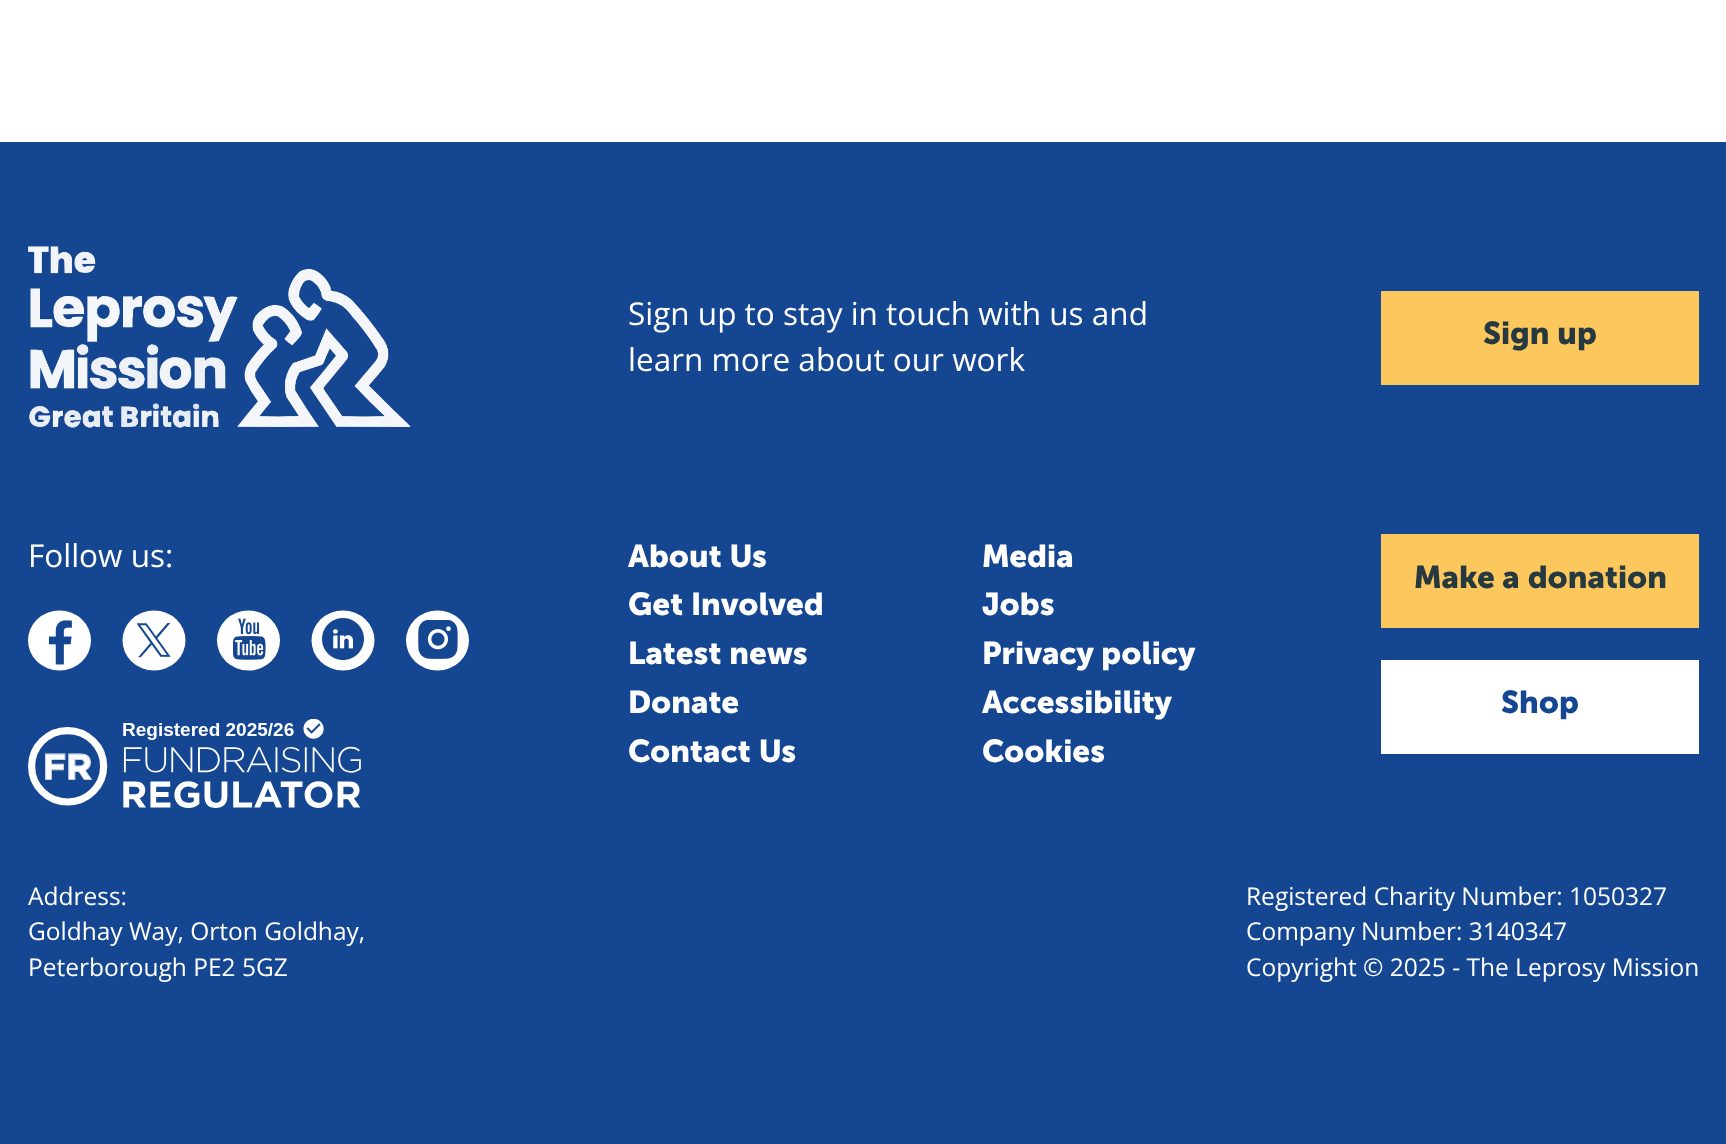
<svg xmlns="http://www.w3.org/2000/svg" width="1726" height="1144">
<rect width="100%" height="100%" fill="#fff"/>
<rect y="142" width="1726" height="1002" fill="#154691"/>
<image x="28" y="246" width="383" height="182" href="media/1.png"/>
<text x="628" y="325" style="font-family:Open Sans;font-size:31.5px;fill:#fff">Sign up to stay in touch with us and</text>
<text x="628" y="371" style="font-family:Open Sans;font-size:31.5px;fill:#fff">learn more about our work</text>
<rect x="1381" y="291" width="318" height="94" fill="#fcc75d"/>
<text x="1483" y="344" style="font-family:'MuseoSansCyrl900';font-size:31.5px;fill:#263941">Sign up</text>
<text x="28" y="567" style="font-family:Open Sans;font-size:31.5px;fill:#fff">Follow us:</text>
<ellipse cx="59.5" cy="640.5" rx="31.5" ry="30" fill="#fff"/>
<image x="49" y="620" width="23" height="45" href="media/2.png"/>
<ellipse cx="154" cy="640.5" rx="31.5" ry="30" fill="#fff"/>
<image x="137" y="623" width="34" height="35" href="media/3.png"/>
<ellipse cx="248.5" cy="640.5" rx="31.5" ry="30" fill="#fff"/>
<image x="233" y="618" width="33" height="42" href="media/4.png"/>
<ellipse cx="343" cy="640.5" rx="31.5" ry="30" fill="#fff"/>
<image x="322" y="618" width="42" height="42" href="media/5.png"/>
<ellipse cx="437.5" cy="640.5" rx="31.5" ry="30" fill="#fff"/>
<image x="418" y="620" width="40" height="39" href="media/6.png"/>
<image x="28" y="719" width="333" height="89" href="media/7.png"/>
<text x="628" y="567" style="font-family:'MuseoSansCyrl900';font-size:31.5px;fill:#fff">About Us</text>
<text x="628" y="615" style="font-family:'MuseoSansCyrl900';font-size:31.5px;fill:#fff">Get Involved</text>
<text x="628" y="664" style="font-family:'MuseoSansCyrl900';font-size:31.5px;fill:#fff">Latest news</text>
<text x="628" y="713" style="font-family:'MuseoSansCyrl900';font-size:31.5px;fill:#fff">Donate</text>
<text x="628" y="762" style="font-family:'MuseoSansCyrl900';font-size:31.5px;fill:#fff">Contact Us</text>
<text x="982" y="567" style="font-family:'MuseoSansCyrl900';font-size:31.5px;fill:#fff">Media</text>
<text x="982" y="615" style="font-family:'MuseoSansCyrl900';font-size:31.5px;fill:#fff">Jobs</text>
<text x="982" y="664" style="font-family:'MuseoSansCyrl900';font-size:31.5px;fill:#fff">Privacy policy</text>
<text x="982" y="713" style="font-family:'MuseoSansCyrl900';font-size:31.5px;fill:#fff">Accessibility</text>
<text x="982" y="762" style="font-family:'MuseoSansCyrl900';font-size:31.5px;fill:#fff">Cookies</text>
<rect x="1381" y="534" width="318" height="94" fill="#fcc75d"/>
<text x="1414" y="588" style="font-family:'MuseoSansCyrl900';font-size:31.5px;fill:#263941">Make a donation</text>
<rect x="1381" y="660" width="318" height="94" fill="#fff"/>
<text x="1501" y="713" style="font-family:'MuseoSansCyrl900';font-size:31.5px;fill:#154691">Shop</text>
<text x="28" y="905" style="font-family:Open Sans;font-size:24.5px;fill:#fff">Address:</text>
<text x="28" y="940" style="font-family:Open Sans;font-size:24.5px;fill:#fff">Goldhay Way, Orton Goldhay,</text>
<text x="28" y="976" style="font-family:Open Sans;font-size:24.5px;fill:#fff">Peterborough PE2 5GZ</text>
<text x="1246" y="905" style="font-family:Open Sans;font-size:24.5px;fill:#fff">Registered Charity Number: 1050327</text>
<text x="1246" y="940" style="font-family:Open Sans;font-size:24.5px;fill:#fff">Company Number: 3140347</text>
<text x="1246" y="976" style="font-family:Open Sans;font-size:24.5px;fill:#fff">Copyright © 2025 - The Leprosy Mission</text>
</svg>
